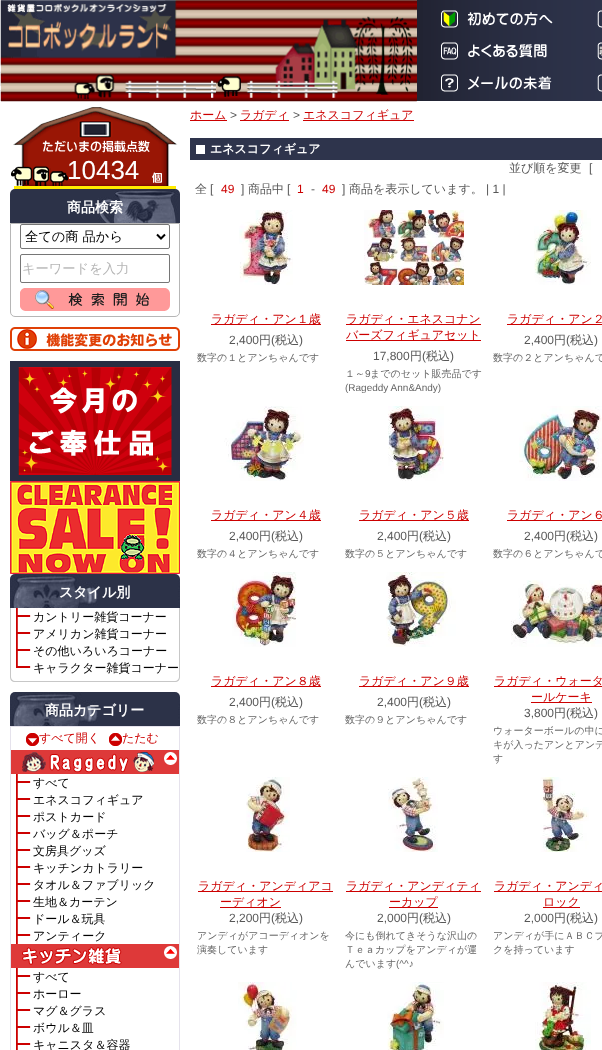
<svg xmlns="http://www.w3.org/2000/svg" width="602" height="1050">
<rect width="100%" height="100%" fill="#fff"/>
<image x="0" y="0" width="417" height="102" href="media/1.png"/>
<image x="417" y="0" width="185" height="101" href="media/2.png"/>
<image x="11" y="107" width="167" height="79" href="media/3.png"/>
<text x="67" y="179" style="font-family:Liberation Sans;font-size:26px;fill:#fff">10434</text>
<rect x="14" y="186" width="162" height="3" fill="#ffeb00"/>
<image x="10" y="189" width="170" height="34" href="media/4.png"/>
<text x="67" y="212" style="font-family:WenQuanYi Zen Hei;font-size:14px;font-weight:bold;fill:#fff">商品検索</text>
<path d="M10.5 223.5h169v88.5c0 2.5-2 4.5-4.5 4.5h-160c-2.5 0-4.5-2-4.5-4.5z" fill="none" stroke="#b6b6b6"/>
<rect x="20.5" y="224.5" width="149" height="24" rx="1.5" fill="none" stroke="#767676"/>
<path d="M157 234.5l4 4l4-4" fill="none" stroke="#000" stroke-width="2"/>
<text x="25" y="241" style="font-family:WenQuanYi Zen Hei;font-size:13.25px;font-weight:500;fill:#000">全ての商 品から</text>
<rect x="20.5" y="254.5" width="149" height="28" rx="1.5" fill="none" stroke="#767676"/>
<text x="22" y="273" style="font-family:WenQuanYi Zen Hei;font-size:13.25px;font-weight:500;fill:#b6b6b6">キーワードを入力</text>
<image x="20" y="288" width="150" height="23" href="media/5.png"/>
<image x="10" y="327" width="170" height="24" href="media/6.png"/>
<image x="10" y="361" width="170" height="120" href="media/7.png"/>
<image x="10" y="481" width="170" height="93" href="media/8.png"/>
<image x="10" y="574" width="170" height="34" href="media/9.png"/>
<text x="59" y="597" style="font-family:WenQuanYi Zen Hei;font-size:14px;font-weight:bold;fill:#fff">スタイル別</text>
<path d="M10 608h170v69c0 3-2 5-5 5h-160c-3 0-5-2-5-5zm1 0h168v69c0 2-2 4-4 4h-160c-2 0-4-2-4-4z" fill="#c7c7c7" fill-rule="evenodd"/>
<image x="16" y="608" width="15" height="17" href="media/10.png"/>
<text x="33" y="621" style="font-family:WenQuanYi Zen Hei;font-size:12px;font-weight:500;fill:#000">カントリー雑貨コーナー</text>
<image x="16" y="625" width="15" height="17" href="media/10.png"/>
<text x="33" y="638" style="font-family:WenQuanYi Zen Hei;font-size:12px;font-weight:500;fill:#000">アメリカン雑貨コーナー</text>
<image x="16" y="642" width="15" height="17" href="media/10.png"/>
<text x="33" y="655" style="font-family:WenQuanYi Zen Hei;font-size:12px;font-weight:500;fill:#000">その他いろいろコーナー</text>
<image x="16" y="659" width="15" height="9" href="media/11.png"/>
<text x="33" y="672" style="font-family:WenQuanYi Zen Hei;font-size:12px;font-weight:500;fill:#000">キャラクター雑貨コーナー</text>
<image x="10" y="692" width="170" height="34" href="media/9.png"/>
<text x="45" y="715" style="font-family:WenQuanYi Zen Hei;font-size:14px;font-weight:bold;fill:#fff">商品カテゴリー</text>
<rect x="10.5" y="726.5" width="169" height="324" fill="none" stroke="#e5e2ec"/>
<image x="26" y="733" width="13" height="13" href="media/12.png"/>
<text x="39" y="742" style="font-family:WenQuanYi Zen Hei;font-size:12px;font-weight:500;fill:#c00">すべて開く</text>
<image x="109" y="733" width="13" height="13" href="media/13.png"/>
<text x="122" y="742" style="font-family:WenQuanYi Zen Hei;font-size:12px;font-weight:500;fill:#c00">たたむ</text>
<image x="11" y="750" width="168" height="24" href="media/14.png"/>
<image x="16" y="774" width="15" height="17" href="media/10.png"/>
<text x="33" y="787" style="font-family:WenQuanYi Zen Hei;font-size:12px;font-weight:500;fill:#000">すべて</text>
<image x="16" y="791" width="15" height="17" href="media/10.png"/>
<text x="33" y="804" style="font-family:WenQuanYi Zen Hei;font-size:12px;font-weight:500;fill:#000">エネスコフィギュア</text>
<image x="16" y="808" width="15" height="17" href="media/10.png"/>
<text x="33" y="821" style="font-family:WenQuanYi Zen Hei;font-size:12px;font-weight:500;fill:#000">ポストカード</text>
<image x="16" y="825" width="15" height="17" href="media/10.png"/>
<text x="33" y="838" style="font-family:WenQuanYi Zen Hei;font-size:12px;font-weight:500;fill:#000">バッグ＆ポーチ</text>
<image x="16" y="842" width="15" height="17" href="media/10.png"/>
<text x="33" y="855" style="font-family:WenQuanYi Zen Hei;font-size:12px;font-weight:500;fill:#000">文房具グッズ</text>
<image x="16" y="859" width="15" height="17" href="media/10.png"/>
<text x="33" y="872" style="font-family:WenQuanYi Zen Hei;font-size:12px;font-weight:500;fill:#000">キッチンカトラリー</text>
<image x="16" y="876" width="15" height="17" href="media/10.png"/>
<text x="33" y="889" style="font-family:WenQuanYi Zen Hei;font-size:12px;font-weight:500;fill:#000">タオル＆ファブリック</text>
<image x="16" y="893" width="15" height="17" href="media/10.png"/>
<text x="33" y="906" style="font-family:WenQuanYi Zen Hei;font-size:12px;font-weight:500;fill:#000">生地＆カーテン</text>
<image x="16" y="910" width="15" height="17" href="media/10.png"/>
<text x="33" y="923" style="font-family:WenQuanYi Zen Hei;font-size:12px;font-weight:500;fill:#000">ドール＆玩具</text>
<image x="16" y="927" width="15" height="17" href="media/10.png"/>
<text x="33" y="940" style="font-family:WenQuanYi Zen Hei;font-size:12px;font-weight:500;fill:#000">アンティーク</text>
<image x="11" y="944" width="168" height="24" href="media/15.png"/>
<image x="16" y="968" width="15" height="17" href="media/10.png"/>
<text x="33" y="981" style="font-family:WenQuanYi Zen Hei;font-size:12px;font-weight:500;fill:#000">すべて</text>
<image x="16" y="985" width="15" height="17" href="media/10.png"/>
<text x="33" y="998" style="font-family:WenQuanYi Zen Hei;font-size:12px;font-weight:500;fill:#000">ホーロー</text>
<image x="16" y="1002" width="15" height="17" href="media/10.png"/>
<text x="33" y="1015" style="font-family:WenQuanYi Zen Hei;font-size:12px;font-weight:500;fill:#000">マグ＆グラス</text>
<image x="16" y="1019" width="15" height="17" href="media/10.png"/>
<text x="33" y="1032" style="font-family:WenQuanYi Zen Hei;font-size:12px;font-weight:500;fill:#000">ボウル＆皿</text>
<image x="16" y="1036" width="15" height="14" href="media/16.png"/>
<text x="33" y="1049" style="font-family:WenQuanYi Zen Hei;font-size:12px;font-weight:500;fill:#000">キャニスタ＆容器</text>
<rect x="190" y="120" width="37" height="1" fill="#c00"/>
<text x="190" y="119" style="font-family:WenQuanYi Zen Hei;font-size:12px;font-weight:500;fill:#c00">ホーム</text>
<text x="230" y="119" style="font-family:Liberation Sans;font-size:12px;fill:#575757">&gt;</text>
<rect x="240" y="120" width="49" height="1" fill="#c00"/>
<text x="240" y="119" style="font-family:WenQuanYi Zen Hei;font-size:12px;font-weight:500;fill:#c00">ラガディ</text>
<text x="293" y="119" style="font-family:Liberation Sans;font-size:12px;fill:#575757">&gt;</text>
<rect x="303" y="120" width="111" height="1" fill="#c00"/>
<text x="303" y="119" style="font-family:WenQuanYi Zen Hei;font-size:12px;font-weight:500;fill:#c00">エネスコフィギュア</text>
<rect x="190" y="138" width="412" height="22" fill="#2e344c"/>
<rect x="196" y="145" width="9" height="9" fill="#fff"/>
<text x="210" y="153" style="font-family:WenQuanYi Zen Hei;font-size:12px;font-weight:bold;fill:#fff">エネスコフィギュア</text>
<text x="509" y="172" style="font-family:WenQuanYi Zen Hei;font-size:12px;font-weight:500;fill:#575757">並び順を変更</text>
<text x="589" y="172" style="font-family:Liberation Sans;font-size:12px;fill:#575757">[</text>
<text x="195" y="193" style="font-family:WenQuanYi Zen Hei;font-size:12px;font-weight:500;fill:#575757">全</text>
<text x="210" y="193" style="font-family:Liberation Sans;font-size:12px;fill:#575757">[</text>
<text x="221" y="193" style="font-family:Liberation Sans;font-size:12px;fill:#c00">49</text>
<text x="241" y="193" style="font-family:Liberation Sans;font-size:12px;fill:#575757">]</text>
<text x="248" y="193" style="font-family:WenQuanYi Zen Hei;font-size:12px;font-weight:500;fill:#575757">商品中</text>
<text x="287" y="193" style="font-family:Liberation Sans;font-size:12px;fill:#575757">[</text>
<text x="297" y="193" style="font-family:Liberation Sans;font-size:12px;fill:#c00">1</text>
<text x="311" y="193" style="font-family:Liberation Sans;font-size:12px;fill:#575757">-</text>
<text x="322" y="193" style="font-family:Liberation Sans;font-size:12px;fill:#c00">49</text>
<text x="342" y="193" style="font-family:Liberation Sans;font-size:12px;fill:#575757">]</text>
<text x="349" y="193" style="font-family:WenQuanYi Zen Hei;font-size:12px;font-weight:500;fill:#575757">商品を表示しています。</text>
<text x="486" y="193" style="font-family:Liberation Sans;font-size:12px;fill:#575757">| 1 |</text>
<image x="239" y="210" width="54" height="75" href="media/17.png"/>
<rect x="211" y="324" width="110" height="1" fill="#c00"/>
<text x="211" y="323" style="font-family:WenQuanYi Zen Hei;font-size:12px;font-weight:500;fill:#c00">ラガディ・アン１歳</text>
<text x="229" y="344" style="font-family:Liberation Sans;font-size:12px;fill:#575757">2,400</text>
<text x="259" y="344" style="font-family:WenQuanYi Zen Hei;font-size:12px;font-weight:500;fill:#575757">円</text>
<text x="271" y="344" style="font-family:Liberation Sans;font-size:12px;fill:#575757">(</text>
<text x="275" y="344" style="font-family:WenQuanYi Zen Hei;font-size:12px;font-weight:500;fill:#575757">税込</text>
<text x="299" y="344" style="font-family:Liberation Sans;font-size:12px;fill:#575757">)</text>
<text x="197" y="361" style="font-family:WenQuanYi Zen Hei;font-size:10px;font-weight:500;fill:#666">数字の１とアンちゃんです</text>
<image x="364" y="210" width="100" height="75" href="media/18.png"/>
<rect x="346" y="324" width="135" height="1" fill="#c00"/>
<text x="346" y="323" style="font-family:WenQuanYi Zen Hei;font-size:12px;font-weight:500;fill:#c00">ラガディ・エネスコナン</text>
<rect x="346" y="340" width="135" height="1" fill="#c00"/>
<text x="346" y="339" style="font-family:WenQuanYi Zen Hei;font-size:12px;font-weight:500;fill:#c00">バーズフィギュアセット</text>
<text x="373" y="360" style="font-family:Liberation Sans;font-size:12px;fill:#575757">17,800</text>
<text x="410" y="360" style="font-family:WenQuanYi Zen Hei;font-size:12px;font-weight:500;fill:#575757">円</text>
<text x="422" y="360" style="font-family:Liberation Sans;font-size:12px;fill:#575757">(</text>
<text x="426" y="360" style="font-family:WenQuanYi Zen Hei;font-size:12px;font-weight:500;fill:#575757">税込</text>
<text x="450" y="360" style="font-family:Liberation Sans;font-size:12px;fill:#575757">)</text>
<text x="345" y="377" style="font-family:WenQuanYi Zen Hei;font-size:10px;font-weight:500;fill:#666">１～</text>
<text x="365" y="377" style="font-family:Liberation Sans;font-size:10px;fill:#666">9</text>
<text x="370" y="377" style="font-family:WenQuanYi Zen Hei;font-size:10px;font-weight:500;fill:#666">までのセット販売品です</text>
<text x="345" y="391" style="font-family:Liberation Sans;font-size:10px;fill:#666">(Rageddy Ann&amp;Andy)</text>
<image x="534" y="210" width="57" height="75" href="media/19.png"/>
<rect x="507" y="324" width="95" height="1" fill="#c00"/>
<text x="507" y="323" style="font-family:WenQuanYi Zen Hei;font-size:12px;font-weight:500;fill:#c00">ラガディ・アン２</text>
<text x="524" y="344" style="font-family:Liberation Sans;font-size:12px;fill:#575757">2,400</text>
<text x="554" y="344" style="font-family:WenQuanYi Zen Hei;font-size:12px;font-weight:500;fill:#575757">円</text>
<text x="566" y="344" style="font-family:Liberation Sans;font-size:12px;fill:#575757">(</text>
<text x="570" y="344" style="font-family:WenQuanYi Zen Hei;font-size:12px;font-weight:500;fill:#575757">税込</text>
<text x="594" y="344" style="font-family:Liberation Sans;font-size:12px;fill:#575757">)</text>
<text x="493" y="361" style="font-family:WenQuanYi Zen Hei;font-size:10px;font-weight:500;fill:#666">数字の２とアンちゃんで</text>
<image x="224" y="406" width="80" height="75" href="media/20.png"/>
<rect x="211" y="520" width="110" height="1" fill="#c00"/>
<text x="211" y="519" style="font-family:WenQuanYi Zen Hei;font-size:12px;font-weight:500;fill:#c00">ラガディ・アン４歳</text>
<text x="229" y="540" style="font-family:Liberation Sans;font-size:12px;fill:#575757">2,400</text>
<text x="259" y="540" style="font-family:WenQuanYi Zen Hei;font-size:12px;font-weight:500;fill:#575757">円</text>
<text x="271" y="540" style="font-family:Liberation Sans;font-size:12px;fill:#575757">(</text>
<text x="275" y="540" style="font-family:WenQuanYi Zen Hei;font-size:12px;font-weight:500;fill:#575757">税込</text>
<text x="299" y="540" style="font-family:Liberation Sans;font-size:12px;fill:#575757">)</text>
<text x="197" y="557" style="font-family:WenQuanYi Zen Hei;font-size:10px;font-weight:500;fill:#666">数字の４とアンちゃんです</text>
<image x="388" y="406" width="56" height="75" href="media/21.png"/>
<rect x="359" y="520" width="110" height="1" fill="#c00"/>
<text x="359" y="519" style="font-family:WenQuanYi Zen Hei;font-size:12px;font-weight:500;fill:#c00">ラガディ・アン５歳</text>
<text x="377" y="540" style="font-family:Liberation Sans;font-size:12px;fill:#575757">2,400</text>
<text x="407" y="540" style="font-family:WenQuanYi Zen Hei;font-size:12px;font-weight:500;fill:#575757">円</text>
<text x="419" y="540" style="font-family:Liberation Sans;font-size:12px;fill:#575757">(</text>
<text x="423" y="540" style="font-family:WenQuanYi Zen Hei;font-size:12px;font-weight:500;fill:#575757">税込</text>
<text x="447" y="540" style="font-family:Liberation Sans;font-size:12px;fill:#575757">)</text>
<text x="345" y="557" style="font-family:WenQuanYi Zen Hei;font-size:10px;font-weight:500;fill:#666">数字の５とアンちゃんです</text>
<image x="519" y="406" width="83" height="75" href="media/22.png"/>
<rect x="507" y="520" width="95" height="1" fill="#c00"/>
<text x="507" y="519" style="font-family:WenQuanYi Zen Hei;font-size:12px;font-weight:500;fill:#c00">ラガディ・アン６</text>
<text x="524" y="540" style="font-family:Liberation Sans;font-size:12px;fill:#575757">2,400</text>
<text x="554" y="540" style="font-family:WenQuanYi Zen Hei;font-size:12px;font-weight:500;fill:#575757">円</text>
<text x="566" y="540" style="font-family:Liberation Sans;font-size:12px;fill:#575757">(</text>
<text x="570" y="540" style="font-family:WenQuanYi Zen Hei;font-size:12px;font-weight:500;fill:#575757">税込</text>
<text x="594" y="540" style="font-family:Liberation Sans;font-size:12px;fill:#575757">)</text>
<text x="493" y="557" style="font-family:WenQuanYi Zen Hei;font-size:10px;font-weight:500;fill:#666">数字の６とアンちゃんで</text>
<image x="232" y="572" width="65" height="75" href="media/23.png"/>
<rect x="211" y="686" width="110" height="1" fill="#c00"/>
<text x="211" y="685" style="font-family:WenQuanYi Zen Hei;font-size:12px;font-weight:500;fill:#c00">ラガディ・アン８歳</text>
<text x="229" y="706" style="font-family:Liberation Sans;font-size:12px;fill:#575757">2,400</text>
<text x="259" y="706" style="font-family:WenQuanYi Zen Hei;font-size:12px;font-weight:500;fill:#575757">円</text>
<text x="271" y="706" style="font-family:Liberation Sans;font-size:12px;fill:#575757">(</text>
<text x="275" y="706" style="font-family:WenQuanYi Zen Hei;font-size:12px;font-weight:500;fill:#575757">税込</text>
<text x="299" y="706" style="font-family:Liberation Sans;font-size:12px;fill:#575757">)</text>
<text x="197" y="723" style="font-family:WenQuanYi Zen Hei;font-size:10px;font-weight:500;fill:#666">数字の８とアンちゃんです</text>
<image x="386" y="572" width="70" height="75" href="media/24.png"/>
<rect x="359" y="686" width="110" height="1" fill="#c00"/>
<text x="359" y="685" style="font-family:WenQuanYi Zen Hei;font-size:12px;font-weight:500;fill:#c00">ラガディ・アン９歳</text>
<text x="377" y="706" style="font-family:Liberation Sans;font-size:12px;fill:#575757">2,400</text>
<text x="407" y="706" style="font-family:WenQuanYi Zen Hei;font-size:12px;font-weight:500;fill:#575757">円</text>
<text x="419" y="706" style="font-family:Liberation Sans;font-size:12px;fill:#575757">(</text>
<text x="423" y="706" style="font-family:WenQuanYi Zen Hei;font-size:12px;font-weight:500;fill:#575757">税込</text>
<text x="447" y="706" style="font-family:Liberation Sans;font-size:12px;fill:#575757">)</text>
<text x="345" y="723" style="font-family:WenQuanYi Zen Hei;font-size:10px;font-weight:500;fill:#666">数字の９とアンちゃんです</text>
<image x="511" y="580" width="91" height="67" href="media/25.png"/>
<rect x="494" y="686" width="108" height="1" fill="#c00"/>
<text x="494" y="685" style="font-family:WenQuanYi Zen Hei;font-size:12px;font-weight:500;fill:#c00">ラガディ・ウォータ</text>
<rect x="531" y="702" width="61" height="1" fill="#c00"/>
<text x="531" y="701" style="font-family:WenQuanYi Zen Hei;font-size:12px;font-weight:500;fill:#c00">ールケーキ</text>
<text x="524" y="717" style="font-family:Liberation Sans;font-size:12px;fill:#575757">3,800</text>
<text x="554" y="717" style="font-family:WenQuanYi Zen Hei;font-size:12px;font-weight:500;fill:#575757">円</text>
<text x="566" y="717" style="font-family:Liberation Sans;font-size:12px;fill:#575757">(</text>
<text x="570" y="717" style="font-family:WenQuanYi Zen Hei;font-size:12px;font-weight:500;fill:#575757">税込</text>
<text x="594" y="717" style="font-family:Liberation Sans;font-size:12px;fill:#575757">)</text>
<text x="493" y="734" style="font-family:WenQuanYi Zen Hei;font-size:10px;font-weight:500;fill:#666">ウォーターボールの中に</text>
<text x="493" y="748" style="font-family:WenQuanYi Zen Hei;font-size:10px;font-weight:500;fill:#666">キが入ったアンとアンデ</text>
<text x="493" y="762" style="font-family:WenQuanYi Zen Hei;font-size:10px;font-weight:500;fill:#666">す</text>
<image x="246" y="777" width="44" height="75" href="media/26.png"/>
<rect x="198" y="891" width="135" height="1" fill="#c00"/>
<text x="198" y="890" style="font-family:WenQuanYi Zen Hei;font-size:12px;font-weight:500;fill:#c00">ラガディ・アンディアコ</text>
<rect x="220" y="907" width="61" height="1" fill="#c00"/>
<text x="220" y="906" style="font-family:WenQuanYi Zen Hei;font-size:12px;font-weight:500;fill:#c00">ーディオン</text>
<text x="229" y="922" style="font-family:Liberation Sans;font-size:12px;fill:#575757">2,200</text>
<text x="259" y="922" style="font-family:WenQuanYi Zen Hei;font-size:12px;font-weight:500;fill:#575757">円</text>
<text x="271" y="922" style="font-family:Liberation Sans;font-size:12px;fill:#575757">(</text>
<text x="275" y="922" style="font-family:WenQuanYi Zen Hei;font-size:12px;font-weight:500;fill:#575757">税込</text>
<text x="299" y="922" style="font-family:Liberation Sans;font-size:12px;fill:#575757">)</text>
<text x="197" y="939" style="font-family:WenQuanYi Zen Hei;font-size:10px;font-weight:500;fill:#666">アンディがアコーディオンを</text>
<text x="197" y="953" style="font-family:WenQuanYi Zen Hei;font-size:10px;font-weight:500;fill:#666">演奏しています</text>
<image x="388" y="777" width="50" height="75" href="media/27.png"/>
<rect x="346" y="891" width="135" height="1" fill="#c00"/>
<text x="346" y="890" style="font-family:WenQuanYi Zen Hei;font-size:12px;font-weight:500;fill:#c00">ラガディ・アンディティ</text>
<rect x="389" y="907" width="49" height="1" fill="#c00"/>
<text x="389" y="906" style="font-family:WenQuanYi Zen Hei;font-size:12px;font-weight:500;fill:#c00">ーカップ</text>
<text x="377" y="922" style="font-family:Liberation Sans;font-size:12px;fill:#575757">2,000</text>
<text x="407" y="922" style="font-family:WenQuanYi Zen Hei;font-size:12px;font-weight:500;fill:#575757">円</text>
<text x="419" y="922" style="font-family:Liberation Sans;font-size:12px;fill:#575757">(</text>
<text x="423" y="922" style="font-family:WenQuanYi Zen Hei;font-size:12px;font-weight:500;fill:#575757">税込</text>
<text x="447" y="922" style="font-family:Liberation Sans;font-size:12px;fill:#575757">)</text>
<text x="345" y="939" style="font-family:WenQuanYi Zen Hei;font-size:10px;font-weight:500;fill:#666">今にも倒れてきそうな沢山の</text>
<text x="345" y="953" style="font-family:WenQuanYi Zen Hei;font-size:10px;font-weight:500;fill:#666">Ｔｅａカップをアンディが運</text>
<text x="345" y="967" style="font-family:WenQuanYi Zen Hei;font-size:10px;font-weight:500;fill:#666">んでいます</text>
<text x="396" y="967" style="font-family:Liberation Sans;font-size:10px;fill:#666">(^^♪</text>
<image x="540" y="777" width="49" height="75" href="media/28.png"/>
<rect x="494" y="891" width="108" height="1" fill="#c00"/>
<text x="494" y="890" style="font-family:WenQuanYi Zen Hei;font-size:12px;font-weight:500;fill:#c00">ラガディ・アンディ</text>
<rect x="543" y="907" width="37" height="1" fill="#c00"/>
<text x="543" y="906" style="font-family:WenQuanYi Zen Hei;font-size:12px;font-weight:500;fill:#c00">ロック</text>
<text x="524" y="922" style="font-family:Liberation Sans;font-size:12px;fill:#575757">2,000</text>
<text x="554" y="922" style="font-family:WenQuanYi Zen Hei;font-size:12px;font-weight:500;fill:#575757">円</text>
<text x="566" y="922" style="font-family:Liberation Sans;font-size:12px;fill:#575757">(</text>
<text x="570" y="922" style="font-family:WenQuanYi Zen Hei;font-size:12px;font-weight:500;fill:#575757">税込</text>
<text x="594" y="922" style="font-family:Liberation Sans;font-size:12px;fill:#575757">)</text>
<text x="493" y="939" style="font-family:WenQuanYi Zen Hei;font-size:10px;font-weight:500;fill:#666">アンディが手にＡＢＣブ</text>
<text x="493" y="953" style="font-family:WenQuanYi Zen Hei;font-size:10px;font-weight:500;fill:#666">クを持っています</text>
<image x="238" y="982" width="59" height="68" href="media/29.png"/>
<image x="387" y="982" width="57" height="68" href="media/30.png"/>
<image x="535" y="982" width="56" height="68" href="media/31.png"/>
</svg>
